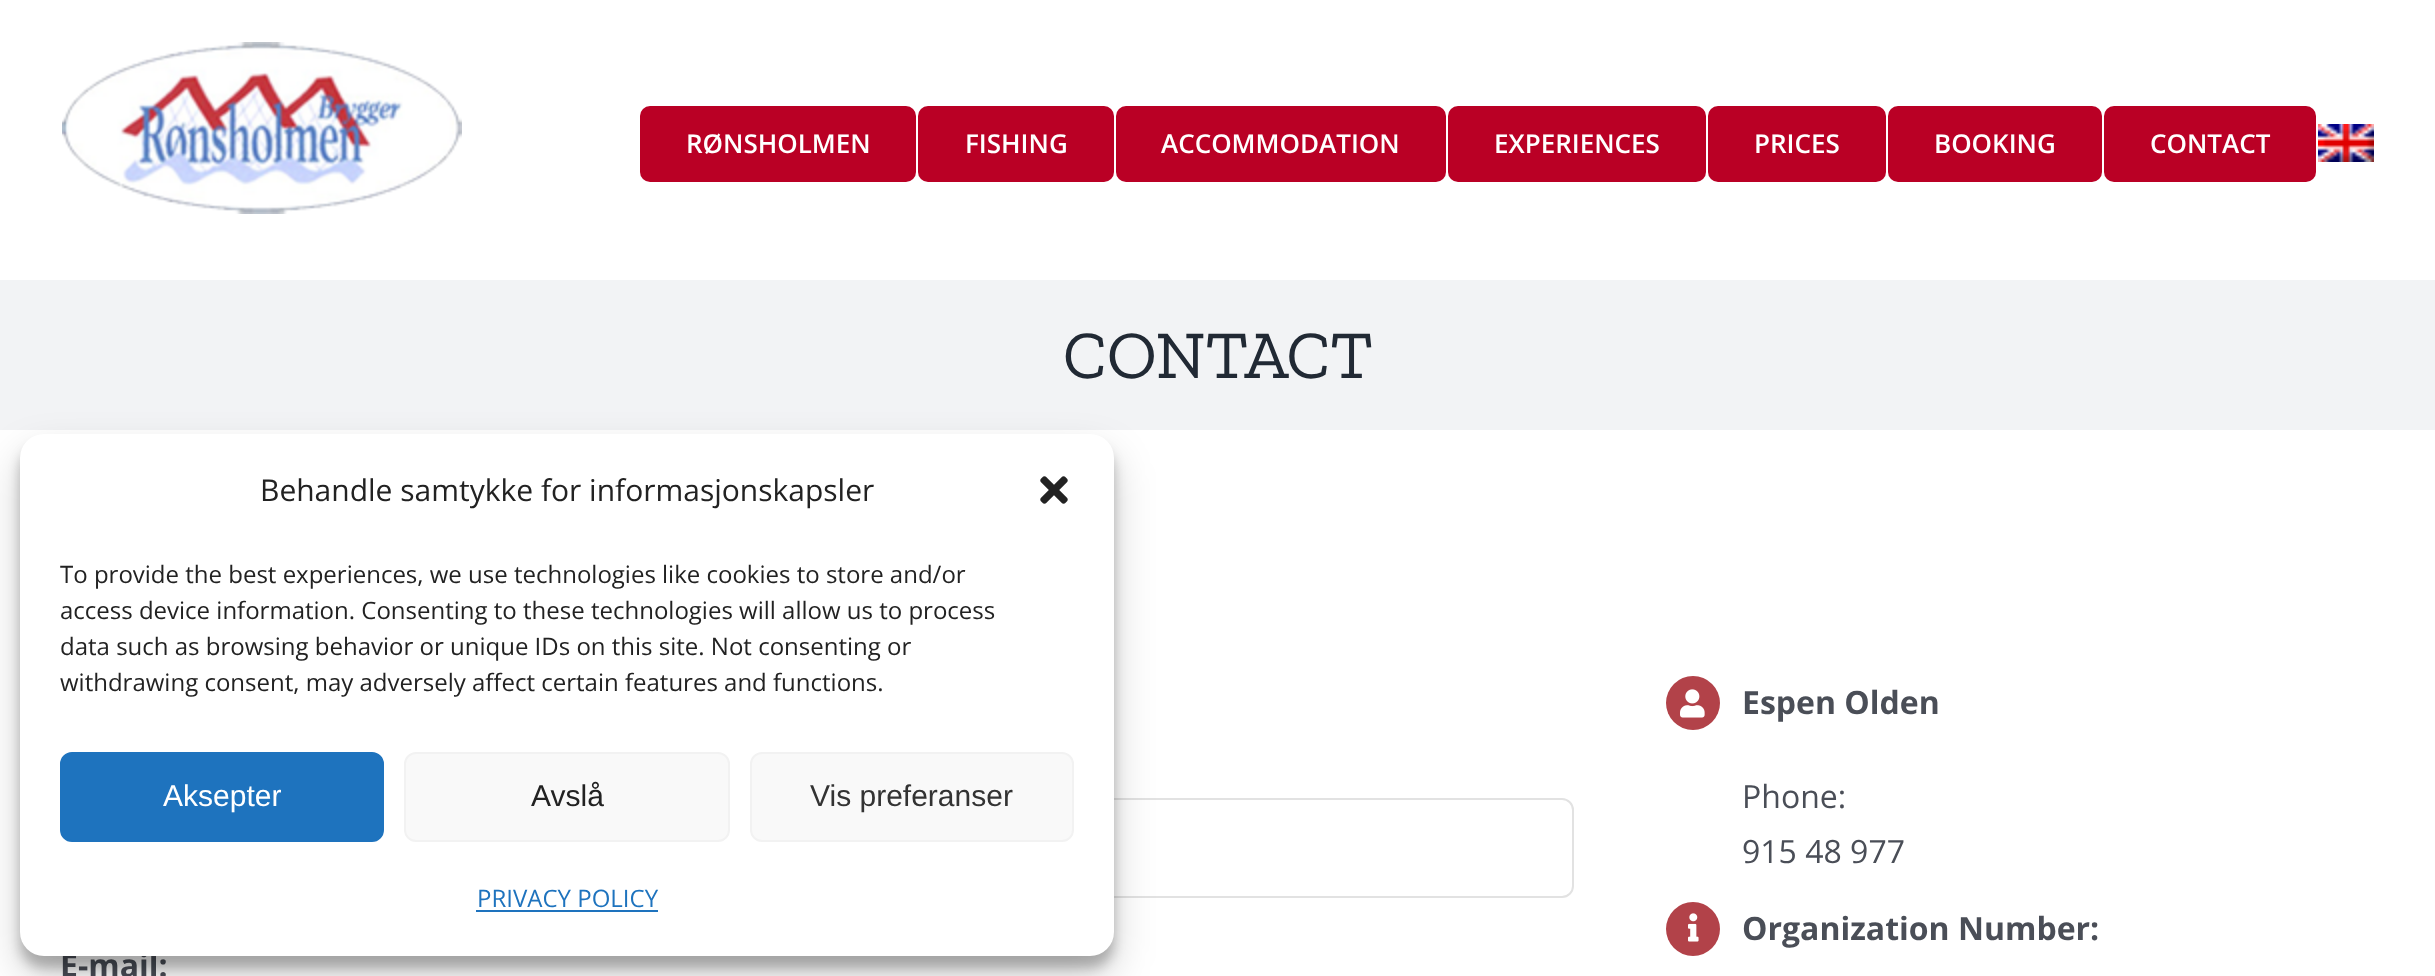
<svg xmlns="http://www.w3.org/2000/svg" width="2435" height="976">
<rect width="100%" height="100%" fill="#fff"/>
<image x="62" y="42" width="400" height="172" href="media/1.png"/>
<rect x="640" y="106" width="276" height="76" rx="10" fill="#ba0025"/>
<text x="686" y="153" style="font-family:Open Sans;font-size:26px;font-weight:600;fill:#fff">RØNSHOLMEN</text>
<rect x="918" y="106" width="196" height="76" rx="10" fill="#ba0025"/>
<text x="965" y="153" style="font-family:Open Sans;font-size:26px;font-weight:600;fill:#fff">FISHING</text>
<rect x="1116" y="106" width="330" height="76" rx="10" fill="#ba0025"/>
<text x="1161" y="153" style="font-family:Open Sans;font-size:26px;font-weight:600;fill:#fff">ACCOMMODATION</text>
<rect x="1448" y="106" width="258" height="76" rx="10" fill="#ba0025"/>
<text x="1494" y="153" style="font-family:Open Sans;font-size:26px;font-weight:600;fill:#fff">EXPERIENCES</text>
<rect x="1708" y="106" width="178" height="76" rx="10" fill="#ba0025"/>
<text x="1754" y="153" style="font-family:Open Sans;font-size:26px;font-weight:600;fill:#fff">PRICES</text>
<rect x="1888" y="106" width="214" height="76" rx="10" fill="#ba0025"/>
<text x="1934" y="153" style="font-family:Open Sans;font-size:26px;font-weight:600;fill:#fff">BOOKING</text>
<rect x="2104" y="106" width="212" height="76" rx="10" fill="#ba0025"/>
<text x="2150" y="153" style="font-family:Open Sans;font-size:26px;font-weight:600;fill:#fff">CONTACT</text>
<image x="2318" y="124" width="56" height="38" href="media/2.png"/>
<rect y="280" width="2435" height="150" fill="#f2f3f5"/>
<text x="1063" y="378" style="font-family:Zilla Slab;font-size:68px;fill:#212934">CONTACT</text>
<circle cx="1693" cy="703" r="27" fill="#b24249"/>
<image x="1680" y="689" width="25" height="29" href="media/3.png"/>
<text x="1742" y="714" style="font-family:Open Sans;font-size:32px;font-weight:bold;fill:#4a4e57">Espen Olden</text>
<text x="1742" y="808" style="font-family:Open Sans;font-size:32px;fill:#4a4e57">Phone:</text>
<text x="1742" y="863" style="font-family:Open Sans;font-size:32px;fill:#4a4e57">915 48 977</text>
<circle cx="1693" cy="929" r="27" fill="#b24249"/>
<image x="1688" y="913" width="11" height="29" href="media/4.png"/>
<text x="1742" y="940" style="font-family:Open Sans;font-size:32px;font-weight:bold;fill:#4a4e57">Organization Number:</text>
<rect x="61" y="799" width="1512" height="98" rx="11" fill="none" stroke="#e2e2e2" stroke-width="2"/>
<text x="60" y="977" style="font-family:Open Sans;font-size:32px;font-weight:bold;fill:#4a4e57">E-mail:</text>
<rect x="20" y="446" width="1094" height="522" rx="24" fill="#0000003b" filter="blur(6px)"/>
<rect x="20" y="454" width="1094" height="522" rx="24" fill="#00000030" filter="blur(20px)"/>
<rect x="20" y="434" width="1094" height="522" rx="24" fill="#fff"/>
<text x="260" y="501" style="font-family:Open Sans;font-size:30px;fill:#222">Behandle samtykke for informasjonskapsler</text>
<image x="1040" y="476" width="28" height="28" href="media/5.png"/>
<text x="60" y="583" style="font-family:Open Sans;font-size:24px;fill:#222">To provide the best experiences, we use technologies like cookies to store and/or</text>
<text x="60" y="619" style="font-family:Open Sans;font-size:24px;fill:#222">access device information. Consenting to these technologies will allow us to process</text>
<text x="60" y="655" style="font-family:Open Sans;font-size:24px;fill:#222">data such as browsing behavior or unique IDs on this site. Not consenting or</text>
<text x="60" y="691" style="font-family:Open Sans;font-size:24px;fill:#222">withdrawing consent, may adversely affect certain features and functions.</text>
<rect x="61" y="753" width="322" height="88" rx="11" fill="#1e73be" stroke="#1e73be" stroke-width="2"/>
<text x="163" y="806" style="font-family:Liberation Sans;font-size:30px;fill:#fff">Aksepter</text>
<rect x="405" y="753" width="324" height="88" rx="11" fill="#f9f9f9" stroke="#f2f2f2" stroke-width="2"/>
<text x="531" y="806" style="font-family:Liberation Sans;font-size:30px;fill:#222">Avslå</text>
<rect x="751" y="753" width="322" height="88" rx="11" fill="#f9f9f9" stroke="#f2f2f2" stroke-width="2"/>
<text x="810" y="806" style="font-family:Liberation Sans;font-size:30px;fill:#333">Vis preferanser</text>
<text x="477" y="907" style="font-family:Open Sans;font-size:24px;fill:#1e73be">PRIVACY POLICY</text>
<rect x="476" y="910" width="182" height="2" fill="#1e73be"/>
</svg>
